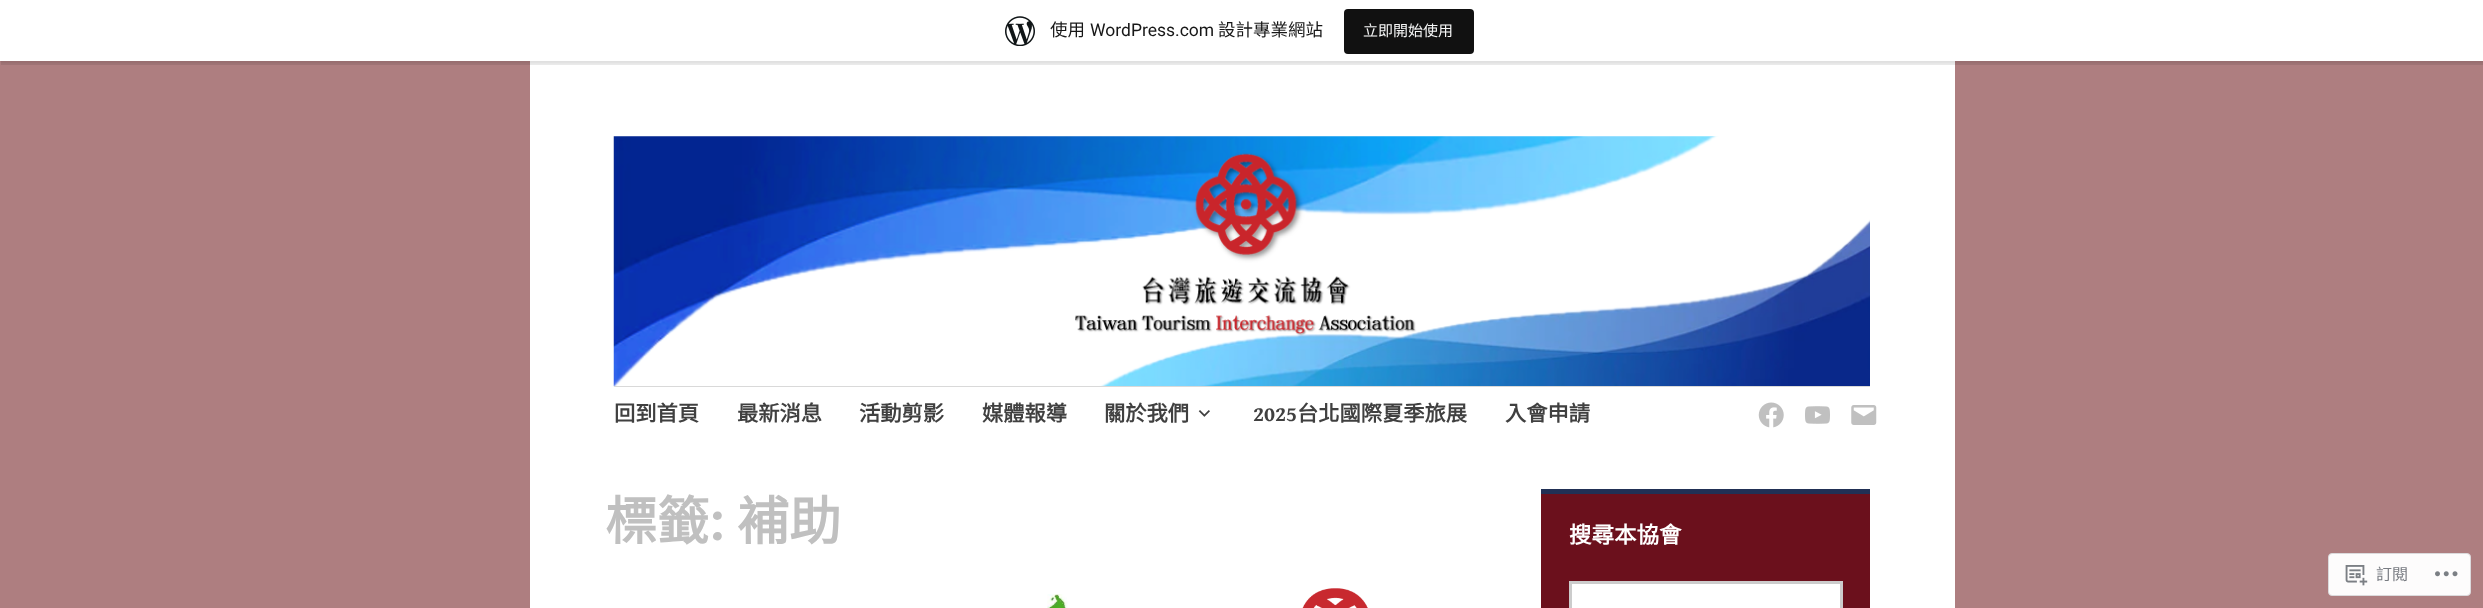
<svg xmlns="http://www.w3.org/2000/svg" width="2483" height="608">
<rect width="100%" height="100%" fill="#ae7e80"/>
<rect x="530" y="61" width="1425" height="547" fill="#fff"/>
<rect y="1" width="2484" height="62" fill="#0000000d" filter="blur(1px)"/>
<path d="M1 61v4h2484v-61h-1v57z" fill="#00000014"/>
<rect width="2483" height="61" fill="#fff"/>
<image x="1005" y="16" width="30" height="30" href="media/1.png"/>
<text x="1050" y="36" style="font-family:Noto Sans CJK TC;font-size:17.5px;fill:#171717">使用</text>
<text x="1090" y="36" style="font-family:Roboto;font-size:17.5px;fill:#171717">WordPress.com</text>
<text x="1218" y="36" style="font-family:Noto Sans CJK TC;font-size:17.5px;fill:#171717">設計專業網站</text>
<rect x="1344" y="9" width="130" height="45" rx="4" fill="#111"/>
<text x="1363" y="36" style="font-family:Noto Sans CJK TC;font-size:15px;fill:#f6f7f7">立即開始使用</text>
<image x="613" y="136" width="1257" height="251" href="media/2.png"/>
<rect x="614" y="386" width="1256" height="1" fill="#d9d9d9"/>
<text x="614" y="421" style="font-family:Noto Sans CJK TC;font-size:21.25px;font-weight:bold;fill:#404040">回到首頁</text>
<text x="737" y="421" style="font-family:Noto Sans CJK TC;font-size:21.25px;font-weight:bold;fill:#404040">最新消息</text>
<text x="859" y="421" style="font-family:Noto Sans CJK TC;font-size:21.25px;font-weight:bold;fill:#404040">活動剪影</text>
<text x="982" y="421" style="font-family:Noto Sans CJK TC;font-size:21.25px;font-weight:bold;fill:#404040">媒體報導</text>
<text x="1104" y="421" style="font-family:Noto Sans CJK TC;font-size:21.25px;font-weight:bold;fill:#404040">關於我們</text>
<image x="1198" y="410" width="12" height="7" href="media/3.png"/>
<text x="1253" y="421" style="font-family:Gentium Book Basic;font-size:21.25px;font-weight:bold;fill:#404040">2025</text>
<text x="1297" y="421" style="font-family:Noto Sans CJK TC;font-size:21.25px;font-weight:bold;fill:#404040">台北國際夏季旅展</text>
<text x="1505" y="421" style="font-family:Noto Sans CJK TC;font-size:21.25px;font-weight:bold;fill:#404040">入會申請</text>
<image x="1758" y="402" width="26" height="26" href="media/4.png"/>
<image x="1805" y="406" width="25" height="18" href="media/5.png"/>
<image x="1851" y="405" width="26" height="20" href="media/6.png"/>
<text x="605" y="540" style="font-family:Noto Sans CJK TC;font-size:52px;font-weight:bold;fill:#c0c0c0">標籤</text>
<text x="710" y="540" style="font-family:Merriweather;font-size:52px;font-weight:300;fill:#c0c0c0">:</text>
<text x="737" y="540" style="font-family:Noto Sans CJK TC;font-size:52px;font-weight:bold;fill:#c0c0c0">補助</text>
<image x="1047" y="594" width="21" height="14" href="media/7.png"/>
<image x="1302" y="588" width="66" height="20" href="media/8.png"/>
<rect x="1541" y="494" width="329" height="114" fill="#6b101c"/>
<rect x="1541" y="489" width="329" height="5" fill="#213055"/>
<text x="1569" y="543" style="font-family:Noto Sans CJK TC;font-size:22.5px;font-weight:bold;fill:#fff">搜尋本協會</text>
<rect x="1570.5" y="582.5" width="271" height="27" fill="#fff" stroke="#ccc" stroke-width="3"/>
<rect x="2328.5" y="553.5" width="142" height="42" rx="3.5" fill="#fdfcfc" stroke="#dbdadc"/>
<image x="2345" y="565" width="23" height="21" href="media/9.png"/>
<text x="2376" y="580" style="font-family:Noto Sans CJK TC;font-size:16px;fill:#797c82">訂閱</text>
<image x="2435" y="571" width="23" height="6" href="media/10.png"/>
</svg>
